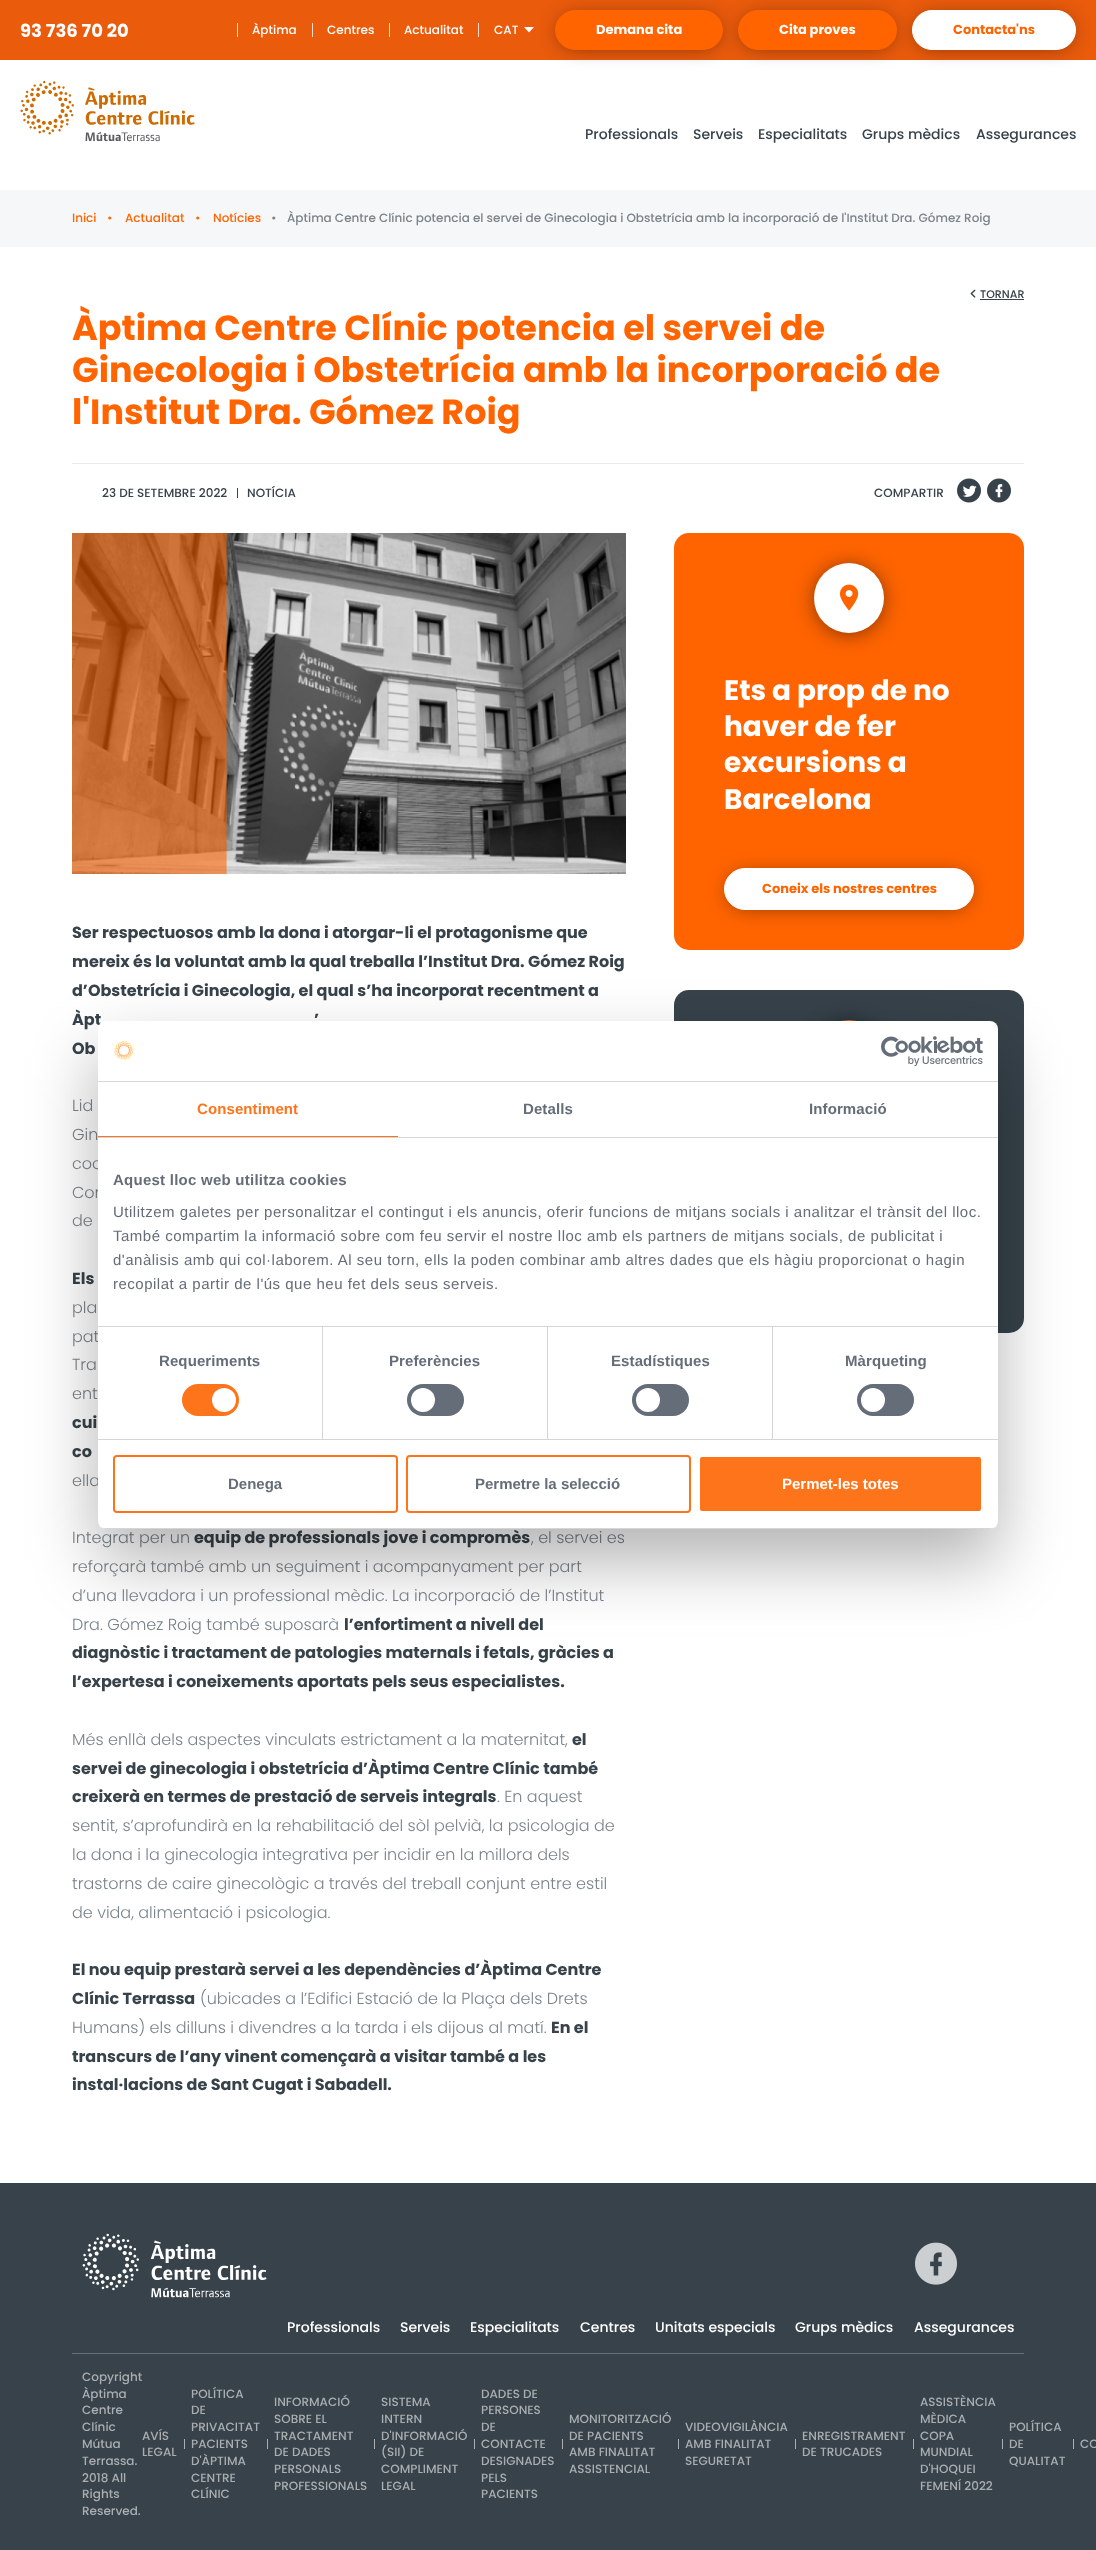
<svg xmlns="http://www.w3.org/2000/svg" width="1096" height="2550">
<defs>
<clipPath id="clip1"><rect x="98" y="1021" width="900" height="508" rx="8"/></clipPath>
</defs>
<rect width="100%" height="100%" fill="#fff"/>
<rect width="1096" height="60" fill="#ea5b0c"/>
<text x="20" y="37" style="font-family:Poppins;font-size:18px;font-weight:bold;fill:#fff">93 736 70 20</text>
<image x="20" y="80" width="175" height="62" href="media/1.png"/>
<rect x="237" y="23" width="1" height="14" fill="#fbdece"/>
<text x="252" y="34" style="font-family:Poppins;font-size:12px;font-weight:500;fill:#fff">Àptima</text>
<rect x="312" y="23" width="1" height="14" fill="#fbdece"/>
<text x="327" y="34" style="font-family:Poppins;font-size:12px;font-weight:500;fill:#fff">Centres</text>
<rect x="389" y="23" width="1" height="14" fill="#fbdece"/>
<text x="404" y="34" style="font-family:Poppins;font-size:12px;font-weight:500;fill:#fff">Actualitat</text>
<rect x="478" y="23" width="1" height="14" fill="#fbdece"/>
<text x="494" y="34" style="font-family:Poppins;font-size:12px;font-weight:500;fill:#fff">CAT</text>
<rect x="560" y="17" width="158" height="30" rx="15" fill="#00000080" filter="blur(10px)"/>
<path d="M534 27l-5 5.5l-5-5.5z" fill="#fff"/>
<rect x="555.5" y="10.5" width="167" height="39" rx="19.5" fill="#ff6400" stroke="#ff6400"/>
<text x="596" y="34" style="font-family:Poppins;font-size:13px;font-weight:bold;fill:#fff">Demana cita</text>
<rect x="743" y="17" width="149" height="30" rx="15" fill="#00000080" filter="blur(10px)"/>
<rect x="738.5" y="10.5" width="158" height="39" rx="19.5" fill="#ff6400" stroke="#ff6400"/>
<text x="779" y="34" style="font-family:Poppins;font-size:13px;font-weight:bold;fill:#fff">Cita proves</text>
<rect x="917" y="17" width="154" height="30" rx="15" fill="#00000080" filter="blur(10px)"/>
<rect x="912.5" y="10.5" width="163" height="39" rx="19.5" fill="#fff" stroke="#fff"/>
<text x="953" y="34" style="font-family:Poppins;font-size:13px;font-weight:bold;fill:#ff6400">Contacta'ns</text>
<text x="585" y="139" style="font-family:Poppins;font-size:14px;font-weight:500;fill:#37424a">Professionals</text>
<text x="693" y="139" style="font-family:Poppins;font-size:14px;font-weight:500;fill:#37424a">Serveis</text>
<text x="758" y="139" style="font-family:Poppins;font-size:14px;font-weight:500;fill:#37424a">Especialitats</text>
<text x="862" y="139" style="font-family:Poppins;font-size:14px;font-weight:500;fill:#37424a">Grups mèdics</text>
<text x="976" y="139" style="font-family:Poppins;font-size:14px;font-weight:500;fill:#37424a">Assegurances</text>
<rect y="190" width="1096" height="57" fill="#f6f7f9"/>
<text x="72" y="222" style="font-family:Poppins;font-size:12px;font-weight:500;fill:#ff6400">Inici</text>
<text x="107" y="222" style="font-family:Poppins;font-size:12px;font-weight:500;fill:#ff6400">•</text>
<text x="125" y="222" style="font-family:Poppins;font-size:12px;font-weight:500;fill:#ff6400">Actualitat</text>
<text x="195" y="222" style="font-family:Poppins;font-size:12px;font-weight:500;fill:#ff6400">•</text>
<text x="213" y="222" style="font-family:Poppins;font-size:12px;font-weight:500;fill:#ff6400">Notícies</text>
<text x="271" y="222" style="font-family:Poppins;font-size:12px;font-weight:500;fill:#7b848b">•</text>
<text x="287" y="222" style="font-family:Poppins;font-size:12px;font-weight:500;fill:#7b848b">Àptima Centre Clínic potencia el servei de Ginecologia i Obstetrícia amb la incorporació de l'Institut Dra. Gómez Roig</text>
<image x="970" y="289" width="6" height="9" href="media/2.png"/>
<text x="980" y="298" style="font-family:Poppins;font-size:11px;font-weight:500;fill:#37424a">TORNAR</text>
<rect x="980" y="299" width="44" height="1" fill="#37424a"/>
<text x="72" y="340" style="font-family:Poppins;font-size:35px;font-weight:bold;fill:#ff6400">Àptima Centre Clínic potencia el servei de</text>
<text x="72" y="382" style="font-family:Poppins;font-size:35px;font-weight:bold;fill:#ff6400">Ginecologia i Obstetrícia amb la incorporació de</text>
<text x="72" y="424" style="font-family:Poppins;font-size:35px;font-weight:bold;fill:#ff6400">l'Institut Dra. Gómez Roig</text>
<rect x="72" y="463" width="952" height="1" fill="#e9e9e9"/>
<text x="102" y="497" style="font-family:Poppins;font-size:12px;font-weight:500;fill:#37424a">23 DE SETEMBRE 2022</text>
<rect x="237" y="488" width="1" height="10" fill="#37424a"/>
<text x="247" y="497" style="font-family:Poppins;font-size:12px;font-weight:500;fill:#37424a">NOTÍCIA</text>
<text x="874" y="497" style="font-family:Poppins;font-size:12px;font-weight:500;fill:#37424a">COMPARTIR</text>
<image x="957" y="478" width="24" height="25" href="media/3.png"/>
<image x="987" y="478" width="24" height="25" href="media/4.png"/>
<rect x="674" y="533" width="350" height="417" rx="15" fill="#ff6400"/>
<rect x="819" y="570" width="60" height="60" rx="30" fill="#000000bf" filter="blur(12.5px)"/>
<circle cx="849" cy="598" r="35" fill="#fff"/>
<image x="840" y="584" width="19" height="27" href="media/5.png"/>
<text x="724" y="700" style="font-family:Poppins;font-size:28px;font-weight:bold;fill:#fff">Ets a prop de no</text>
<text x="724" y="736" style="font-family:Poppins;font-size:28px;font-weight:bold;fill:#fff">haver de fer</text>
<text x="724" y="772" style="font-family:Poppins;font-size:28px;font-weight:bold;fill:#fff">excursions a</text>
<text x="724" y="809" style="font-family:Poppins;font-size:28px;font-weight:bold;fill:#fff">Barcelona</text>
<rect x="729" y="875" width="240" height="32" rx="16" fill="#00000080" filter="blur(10px)"/>
<rect x="724.5" y="868.5" width="249" height="41" rx="20.5" fill="#fff" stroke="#fff"/>
<text x="762" y="893" style="font-family:Poppins;font-size:13px;font-weight:bold;fill:#ff6400">Coneix els nostres centres</text>
<rect x="674" y="990" width="350" height="343" rx="15" fill="#37424a"/>
<rect x="819" y="1027" width="60" height="60" rx="30" fill="#000000bf" filter="blur(12.5px)"/>
<circle cx="849" cy="1055" r="35" fill="#ea5b0c"/>
<image x="72" y="533" width="554" height="341" href="media/6.png"/>
<text x="72" y="938" style="font-family:Poppins;font-size:16px;font-weight:bold;fill:#37424a">Ser respectuosos amb la dona i atorgar-li el protagonisme que</text>
<text x="72" y="967" style="font-family:Poppins;font-size:16px;font-weight:bold;fill:#37424a">mereix és la voluntat amb la qual treballa l’Institut Dra. Gómez Roig</text>
<text x="72" y="996" style="font-family:Poppins;font-size:16px;font-weight:bold;fill:#37424a">d’Obstetrícia i Ginecologia, el qual s’ha incorporat recentment a</text>
<text x="72" y="1025" style="font-family:Poppins;font-size:16px;font-weight:bold;fill:#37424a">Àpt</text>
<text x="314" y="1025" style="font-family:Poppins;font-size:16px;font-weight:bold;fill:#37424a">’</text>
<text x="72" y="1054" style="font-family:Poppins;font-size:16px;font-weight:bold;fill:#37424a">Ob</text>
<text x="72" y="1111" style="font-family:Poppins;font-size:16px;font-weight:300;fill:#7b848b">Lid</text>
<text x="72" y="1140" style="font-family:Poppins;font-size:16px;font-weight:300;fill:#7b848b">Gin</text>
<text x="72" y="1169" style="font-family:Poppins;font-size:16px;font-weight:300;fill:#7b848b">coo</text>
<text x="72" y="1198" style="font-family:Poppins;font-size:16px;font-weight:300;fill:#7b848b">Cor</text>
<text x="72" y="1226" style="font-family:Poppins;font-size:16px;font-weight:300;fill:#7b848b">de</text>
<text x="72" y="1284" style="font-family:Poppins;font-size:16px;font-weight:bold;fill:#37424a">Els</text>
<text x="72" y="1313" style="font-family:Poppins;font-size:16px;font-weight:300;fill:#7b848b">pla</text>
<text x="72" y="1342" style="font-family:Poppins;font-size:16px;font-weight:300;fill:#7b848b">pat</text>
<text x="72" y="1370" style="font-family:Poppins;font-size:16px;font-weight:300;fill:#7b848b">Tra</text>
<text x="72" y="1399" style="font-family:Poppins;font-size:16px;font-weight:300;fill:#7b848b">ent</text>
<text x="72" y="1428" style="font-family:Poppins;font-size:16px;font-weight:bold;fill:#37424a">cui</text>
<text x="72" y="1457" style="font-family:Poppins;font-size:16px;font-weight:bold;fill:#37424a">co</text>
<text x="72" y="1486" style="font-family:Poppins;font-size:16px;font-weight:300;fill:#7b848b">ella</text>
<text x="72" y="1543" style="font-family:Poppins;font-size:16px;font-weight:300;fill:#7b848b">Integrat per un</text>
<text x="194" y="1543" style="font-family:Poppins;font-size:16px;font-weight:bold;fill:#37424a">equip de professionals jove i compromès</text>
<text x="531" y="1543" style="font-family:Poppins;font-size:16px;font-weight:300;fill:#7b848b">, el servei es</text>
<text x="72" y="1572" style="font-family:Poppins;font-size:16px;font-weight:300;fill:#7b848b">reforçarà també amb un seguiment i acompanyament per part</text>
<text x="72" y="1601" style="font-family:Poppins;font-size:16px;font-weight:300;fill:#7b848b">d’una llevadora i un professional mèdic. La incorporació de l’Institut</text>
<text x="72" y="1630" style="font-family:Poppins;font-size:16px;font-weight:300;fill:#7b848b">Dra. Gómez Roig també suposarà</text>
<text x="344" y="1630" style="font-family:Poppins;font-size:16px;font-weight:bold;fill:#37424a">l’enfortiment a nivell del</text>
<text x="72" y="1658" style="font-family:Poppins;font-size:16px;font-weight:bold;fill:#37424a">diagnòstic i tractament de patologies maternals i fetals, gràcies a</text>
<text x="72" y="1687" style="font-family:Poppins;font-size:16px;font-weight:bold;fill:#37424a">l’expertesa i coneixements aportats pels seus especialistes.</text>
<text x="72" y="1745" style="font-family:Poppins;font-size:16px;font-weight:300;fill:#7b848b">Més enllà dels aspectes vinculats estrictament a la maternitat,</text>
<text x="572" y="1745" style="font-family:Poppins;font-size:16px;font-weight:bold;fill:#37424a">el</text>
<text x="72" y="1774" style="font-family:Poppins;font-size:16px;font-weight:bold;fill:#37424a">servei de ginecologia i obstetrícia d’Àptima Centre Clínic també</text>
<text x="72" y="1802" style="font-family:Poppins;font-size:16px;font-weight:bold;fill:#37424a">creixerà en termes de prestació de serveis integrals</text>
<text x="497" y="1802" style="font-family:Poppins;font-size:16px;font-weight:300;fill:#7b848b">. En aquest</text>
<text x="72" y="1831" style="font-family:Poppins;font-size:16px;font-weight:300;fill:#7b848b">sentit, s’aprofundirà en la rehabilitació del sòl pelvià, la psicologia de</text>
<text x="72" y="1860" style="font-family:Poppins;font-size:16px;font-weight:300;fill:#7b848b">la dona i la ginecologia integrativa per incidir en la millora dels</text>
<text x="72" y="1889" style="font-family:Poppins;font-size:16px;font-weight:300;fill:#7b848b">trastorns de caire ginecològic a través del treball conjunt entre estil</text>
<text x="72" y="1918" style="font-family:Poppins;font-size:16px;font-weight:300;fill:#7b848b">de vida, alimentació i psicologia.</text>
<text x="72" y="1975" style="font-family:Poppins;font-size:16px;font-weight:bold;fill:#37424a">El nou equip prestarà servei a les dependències d’Àptima Centre</text>
<text x="72" y="2004" style="font-family:Poppins;font-size:16px;font-weight:bold;fill:#37424a">Clínic Terrassa</text>
<text x="200" y="2004" style="font-family:Poppins;font-size:16px;font-weight:300;fill:#7b848b">(ubicades a l’Edifici Estació de la Plaça dels Drets</text>
<text x="72" y="2033" style="font-family:Poppins;font-size:16px;font-weight:300;fill:#7b848b">Humans) els dilluns i divendres a la tarda i els dijous al matí.</text>
<text x="551" y="2033" style="font-family:Poppins;font-size:16px;font-weight:bold;fill:#37424a">En el</text>
<text x="72" y="2062" style="font-family:Poppins;font-size:16px;font-weight:bold;fill:#37424a">transcurs de l’any vinent començarà a visitar també a les</text>
<text x="72" y="2090" style="font-family:Poppins;font-size:16px;font-weight:bold;fill:#37424a">instal·lacions de Sant Cugat i Sabadell.</text>
<rect x="98" y="1053" width="900" height="508" rx="8" fill="#0000004d" filter="blur(34px)"/>
<rect x="98" y="1021" width="900" height="508" rx="8" fill="#fff"/>
<rect x="98" y="1081" width="900" height="1" fill="#d6d6d6"/>
<image x="114" y="1041" width="20" height="20" href="media/7.png"/>
<image x="881" y="1036" width="102" height="30" href="media/8.png"/>
<rect x="98" y="1137" width="900" height="1" fill="#d6d6d6"/>
<rect x="98" y="1136" width="300" height="1" fill="#fe741a"/>
<text x="197" y="1114" style="font-family:Liberation Sans;font-size:15px;font-weight:bold;letter-spacing:0.1px;fill:#fe741a">Consentiment</text>
<text x="523" y="1114" style="font-family:Liberation Sans;font-size:15px;font-weight:bold;letter-spacing:0.1px;fill:#656d78">Detalls</text>
<text x="809" y="1114" style="font-family:Liberation Sans;font-size:15px;font-weight:bold;letter-spacing:0.1px;fill:#656d78">Informació</text>
<rect x="98" y="1326" width="900" height="1" fill="#d6d6d6"/>
<text x="113" y="1185" style="font-family:Liberation Sans;font-size:15px;font-weight:bold;letter-spacing:0.25px;fill:#656d78">Aquest lloc web utilitza cookies</text>
<text x="113" y="1217" style="font-family:Liberation Sans;font-size:15px;letter-spacing:0.5px;fill:#656d78">Utilitzem galetes per personalitzar el contingut i els anuncis, oferir funcions de mitjans socials i analitzar el trànsit del lloc.</text>
<text x="113" y="1241" style="font-family:Liberation Sans;font-size:15px;letter-spacing:0.5px;fill:#656d78">També compartim la informació sobre com feu servir el nostre lloc amb els partners de mitjans socials, de publicitat i</text>
<text x="113" y="1265" style="font-family:Liberation Sans;font-size:15px;letter-spacing:0.5px;fill:#656d78">d'anàlisis amb qui col·laborem. Al seu torn, ells la poden combinar amb altres dades que els hàgiu proporcionat o hagin</text>
<text x="113" y="1289" style="font-family:Liberation Sans;font-size:15px;letter-spacing:0.5px;fill:#656d78">recopilat a partir de l'ús que heu fet dels seus serveis.</text>
<rect x="98" y="1439" width="900" height="1" fill="#d6d6d6"/>
<rect x="322" y="1327" width="1" height="112" fill="#d6d6d6"/>
<text x="159" y="1366" style="font-family:Liberation Sans;font-size:15px;font-weight:bold;letter-spacing:0.1px;fill:#656d78">Requeriments</text>
<rect x="182" y="1384" width="57" height="32" rx="16" fill="#fe741a"/>
<circle cx="224" cy="1400" r="12" fill="#fff"/>
<rect x="547" y="1327" width="1" height="112" fill="#d6d6d6"/>
<text x="389" y="1366" style="font-family:Liberation Sans;font-size:15px;font-weight:bold;letter-spacing:0.1px;fill:#656d78">Preferències</text>
<rect x="407" y="1384" width="57" height="32" rx="16" fill="#656d78"/>
<circle cx="423" cy="1400" r="12" fill="#fff"/>
<rect x="772" y="1327" width="1" height="112" fill="#d6d6d6"/>
<text x="611" y="1366" style="font-family:Liberation Sans;font-size:15px;font-weight:bold;letter-spacing:0.1px;fill:#656d78">Estadístiques</text>
<rect x="632" y="1384" width="57" height="32" rx="16" fill="#656d78"/>
<circle cx="648" cy="1400" r="12" fill="#fff"/>
<text x="845" y="1366" style="font-family:Liberation Sans;font-size:15px;font-weight:bold;letter-spacing:0.1px;fill:#656d78">Màrqueting</text>
<rect x="857" y="1384" width="57" height="32" rx="16" fill="#656d78"/>
<circle cx="873" cy="1400" r="12" fill="#fff"/>
<g clip-path="url(#clip1)">
<rect x="98" y="1528" width="900" height="1" fill="#d6d6d6"/>
</g>
<rect x="114" y="1456" width="283" height="56" rx="3" fill="none" stroke="#fe741a" stroke-width="2"/>
<text x="228" y="1489" style="font-family:Liberation Sans;font-size:15px;font-weight:bold;fill:#656d78">Denega</text>
<rect x="407" y="1456" width="283" height="56" rx="3" fill="none" stroke="#fe741a" stroke-width="2"/>
<text x="475" y="1489" style="font-family:Liberation Sans;font-size:15px;font-weight:bold;fill:#656d78">Permetre la selecció</text>
<rect x="699" y="1456" width="283" height="56" rx="3" fill="#fe741a" stroke="#fff" stroke-width="2"/>
<text x="782" y="1489" style="font-family:Liberation Sans;font-size:15px;font-weight:bold;fill:#fff">Permet-les totes</text>
<rect y="2183" width="1096" height="367" fill="#37424a"/>
<image x="82" y="2233" width="185" height="65" href="media/9.png"/>
<image x="915" y="2242" width="42" height="43" href="media/10.png"/>
<text x="287" y="2332" style="font-family:Poppins;font-size:14px;font-weight:500;fill:#fff">Professionals</text>
<text x="400" y="2332" style="font-family:Poppins;font-size:14px;font-weight:500;fill:#fff">Serveis</text>
<text x="470" y="2332" style="font-family:Poppins;font-size:14px;font-weight:500;fill:#fff">Especialitats</text>
<text x="580" y="2332" style="font-family:Poppins;font-size:14px;font-weight:500;fill:#fff">Centres</text>
<text x="655" y="2332" style="font-family:Poppins;font-size:14px;font-weight:500;fill:#fff">Unitats especials</text>
<text x="795" y="2332" style="font-family:Poppins;font-size:14px;font-weight:500;fill:#fff">Grups mèdics</text>
<text x="914" y="2332" style="font-family:Poppins;font-size:14px;font-weight:500;fill:#fff">Assegurances</text>
<rect x="72" y="2353" width="952" height="1" fill="#697177"/>
<text x="82" y="2381" style="font-family:Poppins;font-size:12px;font-weight:500;fill:#aaaeb0">Copyright</text>
<text x="82" y="2398" style="font-family:Poppins;font-size:12px;font-weight:500;fill:#aaaeb0">Àptima</text>
<text x="82" y="2414" style="font-family:Poppins;font-size:12px;font-weight:500;fill:#aaaeb0">Centre</text>
<text x="82" y="2431" style="font-family:Poppins;font-size:12px;font-weight:500;fill:#aaaeb0">Clínic</text>
<text x="82" y="2448" style="font-family:Poppins;font-size:12px;font-weight:500;fill:#aaaeb0">Mútua</text>
<text x="82" y="2465" style="font-family:Poppins;font-size:12px;font-weight:500;fill:#aaaeb0">Terrassa.</text>
<text x="82" y="2482" style="font-family:Poppins;font-size:12px;font-weight:500;fill:#aaaeb0">2018 All</text>
<text x="82" y="2498" style="font-family:Poppins;font-size:12px;font-weight:500;fill:#aaaeb0">Rights</text>
<text x="82" y="2515" style="font-family:Poppins;font-size:12px;font-weight:500;fill:#aaaeb0">Reserved.</text>
<text x="142" y="2440" style="font-family:Poppins;font-size:12px;font-weight:500;fill:#aaaeb0">AVÍS</text>
<text x="142" y="2456" style="font-family:Poppins;font-size:12px;font-weight:500;fill:#aaaeb0">LEGAL</text>
<text x="191" y="2398" style="font-family:Poppins;font-size:12px;font-weight:500;fill:#aaaeb0">POLÍTICA</text>
<text x="191" y="2414" style="font-family:Poppins;font-size:12px;font-weight:500;fill:#aaaeb0">DE</text>
<text x="191" y="2431" style="font-family:Poppins;font-size:12px;font-weight:500;fill:#aaaeb0">PRIVACITAT</text>
<rect x="184" y="2439" width="1" height="10" fill="#aaaeb0"/>
<text x="191" y="2448" style="font-family:Poppins;font-size:12px;font-weight:500;fill:#aaaeb0">PACIENTS</text>
<text x="191" y="2465" style="font-family:Poppins;font-size:12px;font-weight:500;fill:#aaaeb0">D'ÀPTIMA</text>
<text x="191" y="2482" style="font-family:Poppins;font-size:12px;font-weight:500;fill:#aaaeb0">CENTRE</text>
<text x="191" y="2498" style="font-family:Poppins;font-size:12px;font-weight:500;fill:#aaaeb0">CLÍNIC</text>
<text x="274" y="2406" style="font-family:Poppins;font-size:12px;font-weight:500;fill:#aaaeb0">INFORMACIÓ</text>
<text x="274" y="2423" style="font-family:Poppins;font-size:12px;font-weight:500;fill:#aaaeb0">SOBRE EL</text>
<text x="274" y="2440" style="font-family:Poppins;font-size:12px;font-weight:500;fill:#aaaeb0">TRACTAMENT</text>
<rect x="267" y="2439" width="1" height="10" fill="#aaaeb0"/>
<text x="274" y="2456" style="font-family:Poppins;font-size:12px;font-weight:500;fill:#aaaeb0">DE DADES</text>
<text x="274" y="2473" style="font-family:Poppins;font-size:12px;font-weight:500;fill:#aaaeb0">PERSONALS</text>
<text x="274" y="2490" style="font-family:Poppins;font-size:12px;font-weight:500;fill:#aaaeb0">PROFESSIONALS</text>
<text x="381" y="2406" style="font-family:Poppins;font-size:12px;font-weight:500;fill:#aaaeb0">SISTEMA</text>
<text x="381" y="2423" style="font-family:Poppins;font-size:12px;font-weight:500;fill:#aaaeb0">INTERN</text>
<text x="381" y="2440" style="font-family:Poppins;font-size:12px;font-weight:500;fill:#aaaeb0">D'INFORMACIÓ</text>
<rect x="374" y="2439" width="1" height="10" fill="#aaaeb0"/>
<text x="381" y="2456" style="font-family:Poppins;font-size:12px;font-weight:500;fill:#aaaeb0">(SII) DE</text>
<text x="381" y="2473" style="font-family:Poppins;font-size:12px;font-weight:500;fill:#aaaeb0">COMPLIMENT</text>
<text x="381" y="2490" style="font-family:Poppins;font-size:12px;font-weight:500;fill:#aaaeb0">LEGAL</text>
<text x="481" y="2398" style="font-family:Poppins;font-size:12px;font-weight:500;fill:#aaaeb0">DADES DE</text>
<text x="481" y="2414" style="font-family:Poppins;font-size:12px;font-weight:500;fill:#aaaeb0">PERSONES</text>
<text x="481" y="2431" style="font-family:Poppins;font-size:12px;font-weight:500;fill:#aaaeb0">DE</text>
<rect x="474" y="2439" width="1" height="10" fill="#aaaeb0"/>
<text x="481" y="2448" style="font-family:Poppins;font-size:12px;font-weight:500;fill:#aaaeb0">CONTACTE</text>
<text x="481" y="2465" style="font-family:Poppins;font-size:12px;font-weight:500;fill:#aaaeb0">DESIGNADES</text>
<text x="481" y="2482" style="font-family:Poppins;font-size:12px;font-weight:500;fill:#aaaeb0">PELS</text>
<text x="481" y="2498" style="font-family:Poppins;font-size:12px;font-weight:500;fill:#aaaeb0">PACIENTS</text>
<text x="569" y="2423" style="font-family:Poppins;font-size:12px;font-weight:500;fill:#aaaeb0">MONITORITZACIÓ</text>
<text x="569" y="2440" style="font-family:Poppins;font-size:12px;font-weight:500;fill:#aaaeb0">DE PACIENTS</text>
<rect x="562" y="2439" width="1" height="10" fill="#aaaeb0"/>
<text x="569" y="2456" style="font-family:Poppins;font-size:12px;font-weight:500;fill:#aaaeb0">AMB FINALITAT</text>
<text x="569" y="2473" style="font-family:Poppins;font-size:12px;font-weight:500;fill:#aaaeb0">ASSISTENCIAL</text>
<text x="685" y="2431" style="font-family:Poppins;font-size:12px;font-weight:500;fill:#aaaeb0">VIDEOVIGILÀNCIA</text>
<rect x="678" y="2439" width="1" height="10" fill="#aaaeb0"/>
<text x="685" y="2448" style="font-family:Poppins;font-size:12px;font-weight:500;fill:#aaaeb0">AMB FINALITAT</text>
<text x="685" y="2465" style="font-family:Poppins;font-size:12px;font-weight:500;fill:#aaaeb0">SEGURETAT</text>
<text x="802" y="2440" style="font-family:Poppins;font-size:12px;font-weight:500;fill:#aaaeb0">ENREGISTRAMENT</text>
<rect x="795" y="2439" width="1" height="10" fill="#aaaeb0"/>
<text x="802" y="2456" style="font-family:Poppins;font-size:12px;font-weight:500;fill:#aaaeb0">DE TRUCADES</text>
<text x="920" y="2406" style="font-family:Poppins;font-size:12px;font-weight:500;fill:#aaaeb0">ASSISTÈNCIA</text>
<text x="920" y="2423" style="font-family:Poppins;font-size:12px;font-weight:500;fill:#aaaeb0">MÈDICA</text>
<text x="920" y="2440" style="font-family:Poppins;font-size:12px;font-weight:500;fill:#aaaeb0">COPA</text>
<rect x="913" y="2439" width="1" height="10" fill="#aaaeb0"/>
<text x="920" y="2456" style="font-family:Poppins;font-size:12px;font-weight:500;fill:#aaaeb0">MUNDIAL</text>
<text x="920" y="2473" style="font-family:Poppins;font-size:12px;font-weight:500;fill:#aaaeb0">D'HOQUEI</text>
<text x="920" y="2490" style="font-family:Poppins;font-size:12px;font-weight:500;fill:#aaaeb0">FEMENÍ 2022</text>
<text x="1009" y="2431" style="font-family:Poppins;font-size:12px;font-weight:500;fill:#aaaeb0">POLÍTICA</text>
<rect x="1002" y="2439" width="1" height="10" fill="#aaaeb0"/>
<text x="1009" y="2448" style="font-family:Poppins;font-size:12px;font-weight:500;fill:#aaaeb0">DE</text>
<text x="1009" y="2465" style="font-family:Poppins;font-size:12px;font-weight:500;fill:#aaaeb0">QUALITAT</text>
<rect x="1073" y="2439" width="1" height="10" fill="#aaaeb0"/>
<text x="1080" y="2448" style="font-family:Poppins;font-size:12px;font-weight:500;fill:#aaaeb0">CO</text>
</svg>
